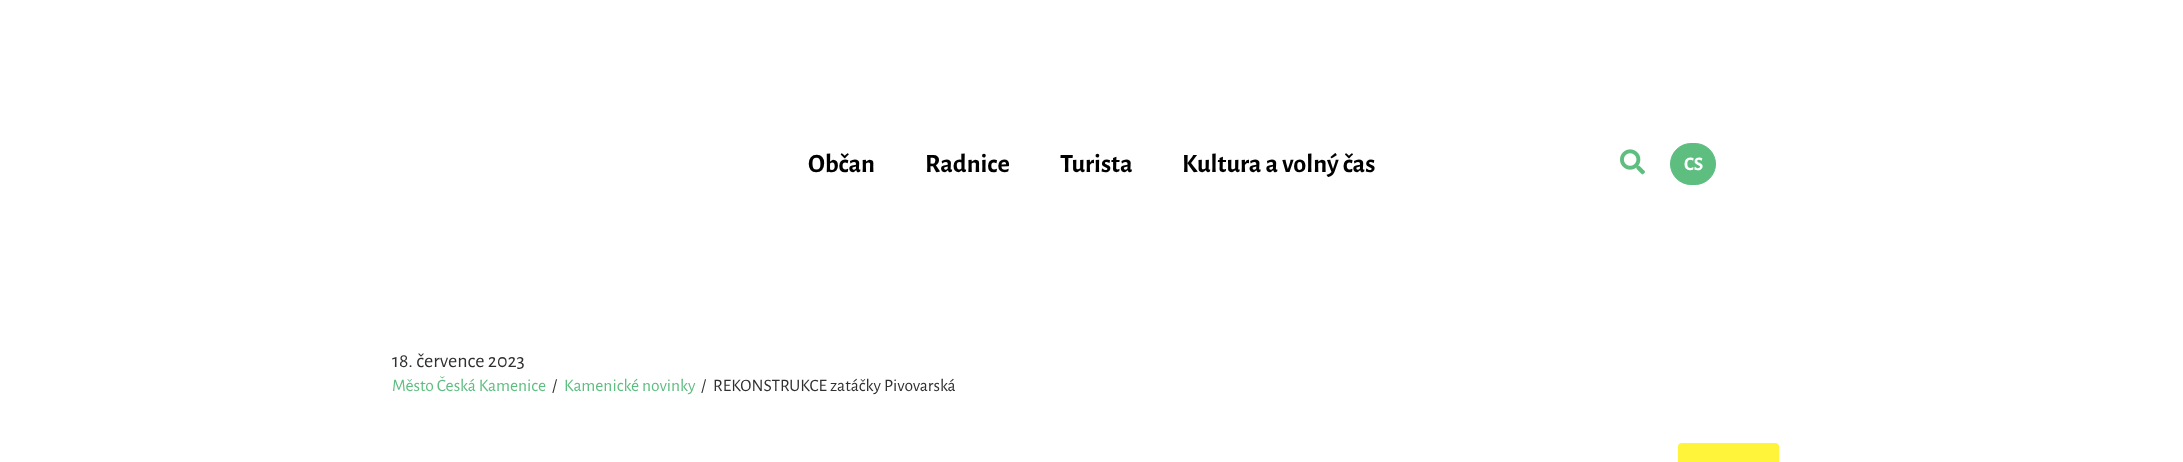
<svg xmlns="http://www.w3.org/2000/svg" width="2183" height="462">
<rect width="100%" height="100%" fill="#fff"/>
<text x="808" y="172" style="font-family:Alegreya Sans;font-size:26.25px;font-weight:bold;fill:#000">Občan</text>
<text x="925" y="172" style="font-family:Alegreya Sans;font-size:26.25px;font-weight:bold;fill:#000">Radnice</text>
<text x="1060" y="172" style="font-family:Alegreya Sans;font-size:26.25px;font-weight:bold;fill:#000">Turista</text>
<text x="1182" y="172" style="font-family:Alegreya Sans;font-size:26.25px;font-weight:bold;fill:#000">Kultura a volný čas</text>
<image x="1620" y="149" width="25" height="26" href="media/1.png"/>
<rect x="1670.5" y="143.5" width="45" height="41" rx="20.5" fill="#5dbe80" stroke="#5dbe80"/>
<text x="1684" y="170" style="font-family:Alegreya Sans;font-size:19px;font-weight:bold;fill:#fff">CS</text>
<text x="392" y="367" style="font-family:Alegreya Sans;font-size:20px;fill:#303030">18. července 2023</text>
<text x="392" y="391" style="font-family:Alegreya Sans;font-size:17.5px;fill:#5dbe80">Město Česká Kamenice</text>
<text x="552" y="391" style="font-family:Alegreya Sans;font-size:17.5px;fill:#303030">/</text>
<text x="564" y="391" style="font-family:Alegreya Sans;font-size:17.5px;fill:#5dbe80">Kamenické novinky</text>
<text x="701" y="391" style="font-family:Alegreya Sans;font-size:17.5px;fill:#303030">/</text>
<text x="713" y="391" style="font-family:Alegreya Sans;font-size:17.5px;fill:#303030">REKONSTRUKCE zatáčky Pivovarská</text>
<rect x="1678" y="443" width="101" height="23" rx="4" fill="#fff439"/>
</svg>
